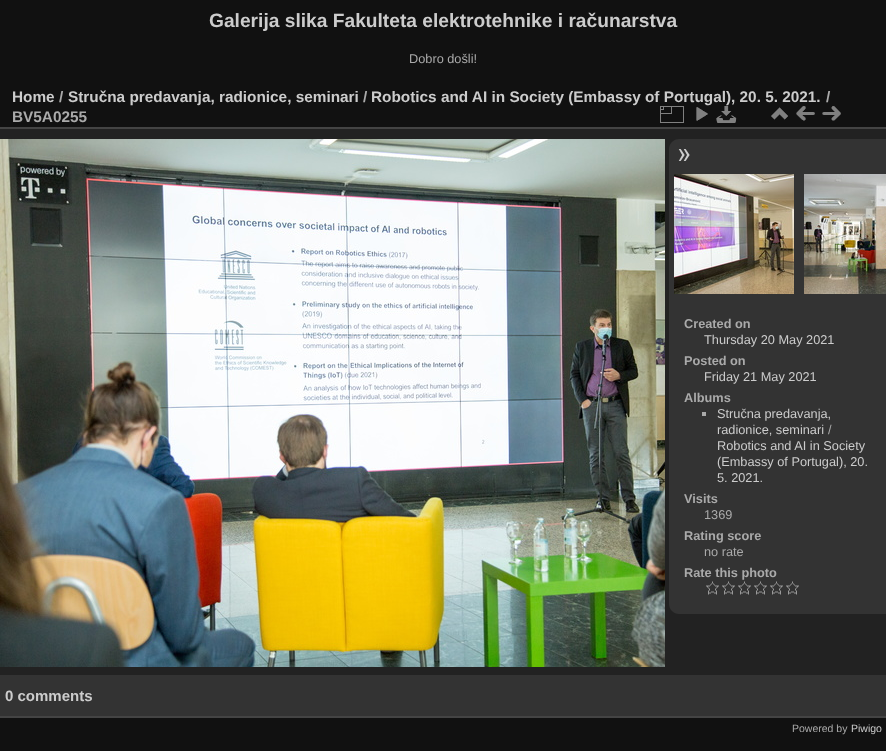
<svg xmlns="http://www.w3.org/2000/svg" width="886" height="751">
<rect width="100%" height="100%" fill="#111"/>
<text x="209" y="27" style="font-family:Liberation Sans;font-size:19.2px;font-weight:bold;fill:#ccc">Galerija slika Fakulteta elektrotehnike i računarstva</text>
<text x="409" y="63" style="font-family:Liberation Sans;font-size:12.75px;fill:#aaa">Dobro došli!</text>
<rect y="129" width="886" height="546" fill="#222"/>
<rect y="716" width="886" height="2" fill="#444"/>
<rect y="127" width="886" height="2" fill="#444"/>
<text x="12" y="102" style="font-family:Liberation Sans;font-size:15.35px;font-weight:bold;fill:#ccc">Home</text>
<text x="59" y="102" style="font-family:Liberation Sans;font-size:15.35px;font-weight:bold;fill:#aaa">/</text>
<text x="68" y="102" style="font-family:Liberation Sans;font-size:15.35px;font-weight:bold;fill:#ccc">Stručna predavanja, radionice, seminari</text>
<text x="363" y="102" style="font-family:Liberation Sans;font-size:15.35px;font-weight:bold;fill:#aaa">/</text>
<text x="371" y="102" style="font-family:Liberation Sans;font-size:15.35px;font-weight:bold;fill:#ccc">Robotics and AI in Society (Embassy of Portugal), 20. 5. 2021.</text>
<text x="826" y="102" style="font-family:Liberation Sans;font-size:15.35px;font-weight:bold;fill:#aaa">/</text>
<text x="12" y="122" style="font-family:Liberation Sans;font-size:15.35px;font-weight:bold;fill:#aaa">BV5A0255</text>
<image x="660" y="106" width="24" height="17" href="media/1.png"/>
<image x="696" y="107" width="12" height="14" href="media/2.png"/>
<image x="716" y="106" width="21" height="17" href="media/3.png"/>
<image x="771" y="107" width="17" height="13" href="media/4.png"/>
<image x="796" y="106" width="19" height="15" href="media/5.png"/>
<image x="822" y="106" width="19" height="15" href="media/6.png"/>
<image x="0" y="139" width="665" height="528" href="media/7.png"/>
<path d="M679 139h207v475h-207c-5.5 0-10-4.5-10-10v-455c0-5.5 4.5-10 10-10z" fill="#333"/>
<image x="678" y="149" width="12" height="12" href="media/8.png"/>
<image x="674" y="174" width="120" height="120" href="media/9.png"/>
<image x="804" y="174" width="82" height="120" href="media/10.png"/>
<text x="684" y="328" style="font-family:Liberation Sans;font-size:12.75px;font-weight:bold;fill:#aaa">Created on</text>
<text x="704" y="344" style="font-family:Liberation Sans;font-size:12.75px;fill:#ccc">Thursday 20 May 2021</text>
<text x="684" y="365" style="font-family:Liberation Sans;font-size:12.75px;font-weight:bold;fill:#aaa">Posted on</text>
<text x="704" y="381" style="font-family:Liberation Sans;font-size:12.75px;fill:#ccc">Friday 21 May 2021</text>
<text x="684" y="402" style="font-family:Liberation Sans;font-size:12.75px;font-weight:bold;fill:#aaa">Albums</text>
<rect x="702" y="412" width="4" height="4" fill="#aaa"/>
<text x="717" y="418" style="font-family:Liberation Sans;font-size:12.75px;fill:#ccc">Stručna predavanja,</text>
<text x="717" y="434" style="font-family:Liberation Sans;font-size:12.75px;fill:#ccc">radionice, seminari</text>
<text x="828" y="434" style="font-family:Liberation Sans;font-size:12.75px;fill:#aaa">/</text>
<text x="717" y="450" style="font-family:Liberation Sans;font-size:12.75px;fill:#ccc">Robotics and AI in Society</text>
<text x="717" y="466" style="font-family:Liberation Sans;font-size:12.75px;fill:#ccc">(Embassy of Portugal), 20.</text>
<text x="717" y="482" style="font-family:Liberation Sans;font-size:12.75px;fill:#ccc">5. 2021.</text>
<text x="684" y="503" style="font-family:Liberation Sans;font-size:12.75px;font-weight:bold;fill:#aaa">Visits</text>
<text x="704" y="519" style="font-family:Liberation Sans;font-size:12.75px;fill:#aaa">1369</text>
<text x="684" y="540" style="font-family:Liberation Sans;font-size:12.75px;font-weight:bold;fill:#aaa">Rating score</text>
<text x="704" y="556" style="font-family:Liberation Sans;font-size:12.75px;fill:#aaa">no rate</text>
<text x="684" y="577" style="font-family:Liberation Sans;font-size:12.75px;font-weight:bold;fill:#aaa">Rate this photo</text>
<image x="706" y="581" width="13" height="14" href="media/11.png"/>
<image x="722" y="581" width="13" height="14" href="media/11.png"/>
<image x="738" y="581" width="13" height="14" href="media/11.png"/>
<image x="754" y="581" width="13" height="14" href="media/11.png"/>
<image x="770" y="581" width="13" height="14" href="media/11.png"/>
<image x="786" y="581" width="13" height="14" href="media/11.png"/>
<rect y="675" width="886" height="41" fill="#333"/>
<text x="5" y="701" style="font-family:Liberation Sans;font-size:15px;font-weight:bold;fill:#ccc">0 comments</text>
<text x="792" y="732" style="font-family:Liberation Sans;font-size:10.5px;fill:#aaa">Powered by</text>
<text x="851" y="732" style="font-family:Liberation Sans;font-size:10.5px;fill:#ccc">Piwigo</text>
</svg>
